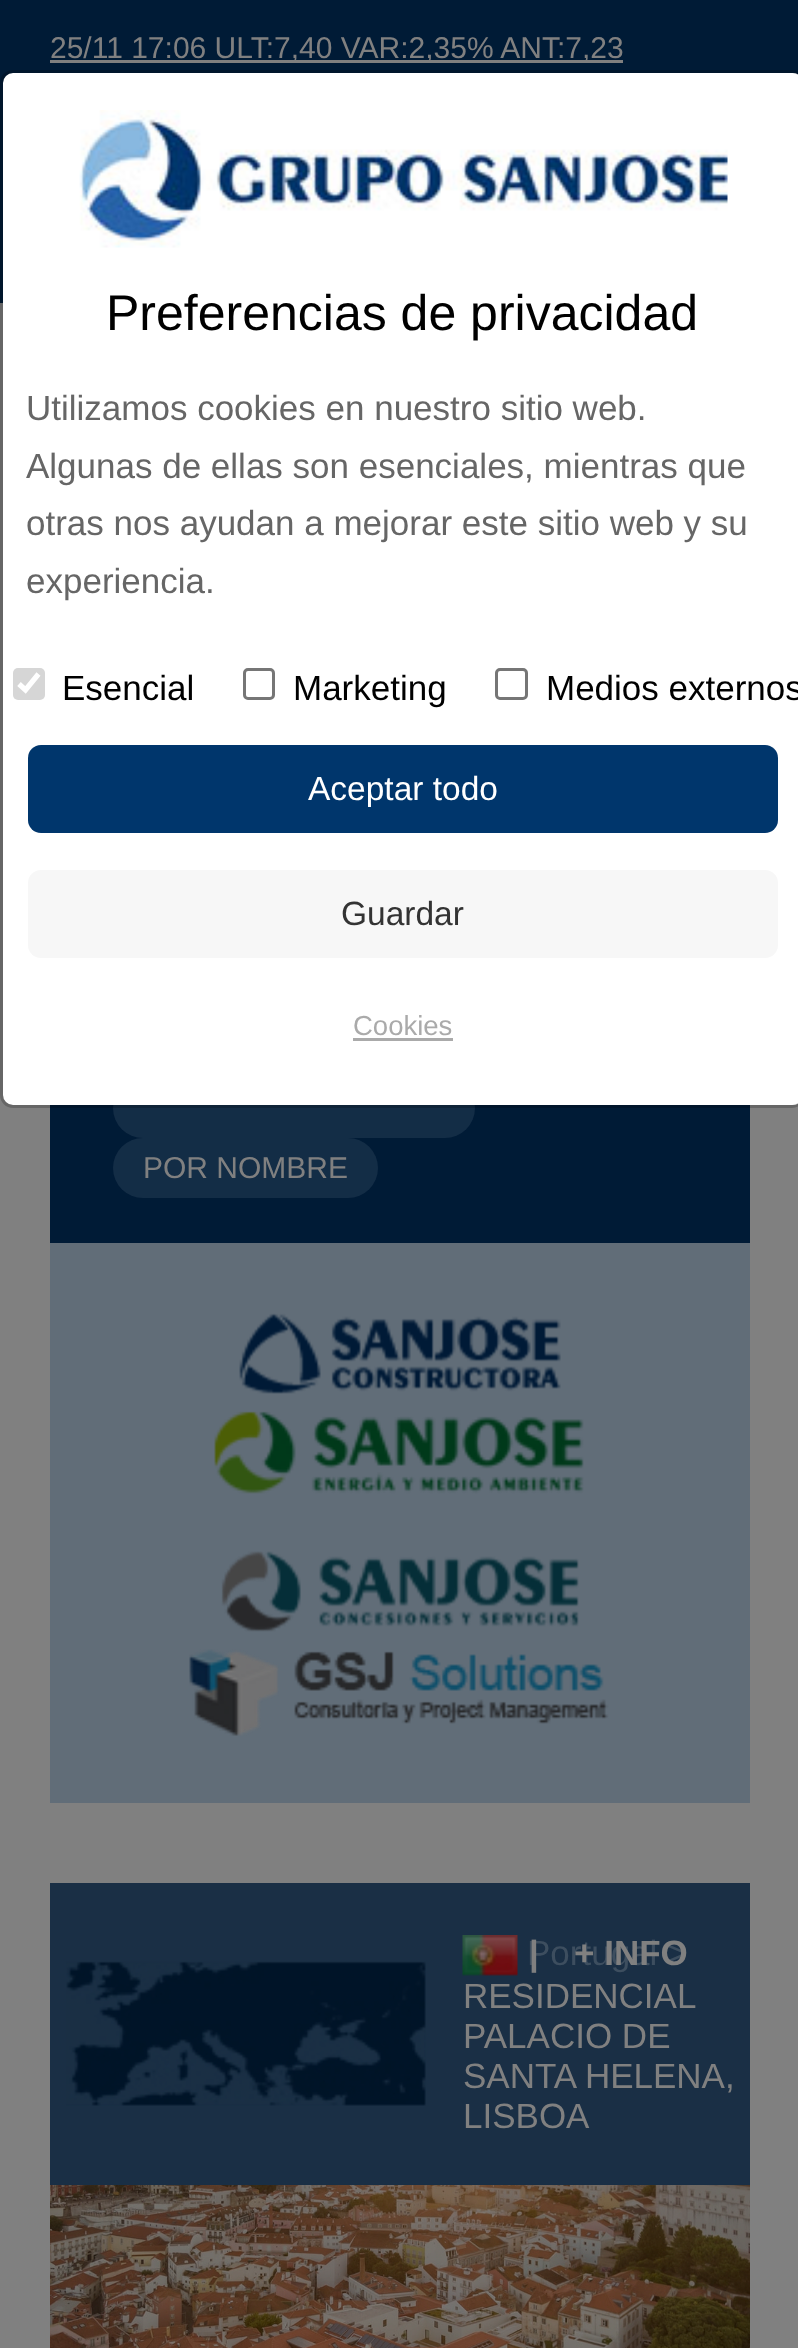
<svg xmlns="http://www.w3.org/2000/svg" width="798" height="2348">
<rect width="100%" height="100%" fill="#808080"/>
<rect width="798" height="303" fill="#001b36"/>
<rect x="50" y="60" width="573" height="3" fill="#808080"/>
<text x="50" y="58" style="font-family:Liberation Sans;font-size:30px;fill:#808080">25/11 17:06 ULT:7,40 VAR:2,35% ANT:7,23</text>
<rect x="50" y="1105" width="700" height="138" fill="#001b36"/>
<rect x="113" y="1078" width="362" height="60" rx="30" fill="#132d46"/>
<rect x="3" y="73" width="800" height="1032" rx="10" fill="#fff"/>
<rect x="1.5" y="71.5" width="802" height="1035" rx="11.5" fill="none" stroke="#00000033" stroke-width="3"/>
<image x="79" y="110" width="649" height="138" href="media/1.png"/>
<text x="106" y="330" style="font-family:Liberation Sans;font-size:50px;fill:#000">Preferencias de privacidad</text>
<text x="26" y="420" style="font-family:Liberation Sans;font-size:35px;fill:#666">Utilizamos cookies en nuestro sitio web.</text>
<text x="26" y="478" style="font-family:Liberation Sans;font-size:35px;fill:#666">Algunas de ellas son esenciales, mientras que</text>
<text x="26" y="535" style="font-family:Liberation Sans;font-size:35px;fill:#666">otras nos ayudan a mejorar este sitio web y su</text>
<text x="26" y="593" style="font-family:Liberation Sans;font-size:35px;fill:#666">experiencia.</text>
<rect x="13" y="668" width="32" height="32" rx="5" fill="#d6d6d6"/>
<path d="M19 684l6.5 6l13-16" fill="none" stroke="#fff" stroke-width="5.2"/>
<text x="62" y="700" style="font-family:Liberation Sans;font-size:35px;fill:#000">Esencial</text>
<rect x="244.5" y="669.5" width="29" height="29" rx="3.5" fill="none" stroke="#767676" stroke-width="3"/>
<text x="293" y="700" style="font-family:Liberation Sans;font-size:35px;fill:#000">Marketing</text>
<rect x="496.5" y="669.5" width="30" height="29" rx="3.5" fill="none" stroke="#767676" stroke-width="3"/>
<text x="546" y="700" style="font-family:Liberation Sans;font-size:35px;fill:#000">Medios externos</text>
<rect x="28" y="745" width="750" height="88" rx="13" fill="#00366c"/>
<text x="308" y="800" style="font-family:Liberation Sans;font-size:33.5px;fill:#fff">Aceptar todo</text>
<rect x="28" y="870" width="750" height="88" rx="13" fill="#f7f7f7"/>
<text x="341" y="925" style="font-family:Liberation Sans;font-size:33.5px;fill:#333">Guardar</text>
<text x="353" y="1035" style="font-family:Liberation Sans;font-size:27.5px;fill:#aaa">Cookies</text>
<rect x="353" y="1038" width="100" height="3" fill="#aaa"/>
<rect x="113" y="1138" width="265" height="60" rx="30" fill="#132d46"/>
<text x="143" y="1178" style="font-family:Liberation Sans;font-size:30px;fill:#808080">POR NOMBRE</text>
<rect x="50" y="1243" width="700" height="560" fill="#616d78"/>
<image x="239" y="1313" width="322" height="81" href="media/2.png"/>
<image x="214" y="1411" width="370" height="83" href="media/3.png"/>
<image x="221" y="1551" width="358" height="81" href="media/4.png"/>
<image x="189" y="1649" width="420" height="87" href="media/5.png"/>
<rect x="50" y="1883" width="700" height="302" fill="#1a2f45"/>
<image x="66" y="1961" width="360" height="145" href="media/6.png"/>
<image x="462" y="1935" width="56" height="41" href="media/7.png"/>
<text x="527" y="1965" style="font-family:Liberation Sans;font-size:35px;fill:#3d4e5f">Portugal &gt;</text>
<text x="463" y="2008" style="font-family:Liberation Sans;font-size:35px;fill:#808080">RESIDENCIAL</text>
<text x="463" y="2048" style="font-family:Liberation Sans;font-size:35px;fill:#808080">PALACIO DE</text>
<text x="463" y="2088" style="font-family:Liberation Sans;font-size:35px;fill:#808080">SANTA HELENA,</text>
<text x="463" y="2128" style="font-family:Liberation Sans;font-size:35px;fill:#808080">LISBOA</text>
<text x="529" y="1965" style="font-family:Liberation Sans;font-size:35px;font-weight:bold;fill:#808080">|</text>
<text x="574" y="1965" style="font-family:Liberation Sans;font-size:35px;font-weight:bold;fill:#808080">+ INFO</text>
<image x="50" y="2185" width="700" height="163" href="media/8.png"/>
</svg>
